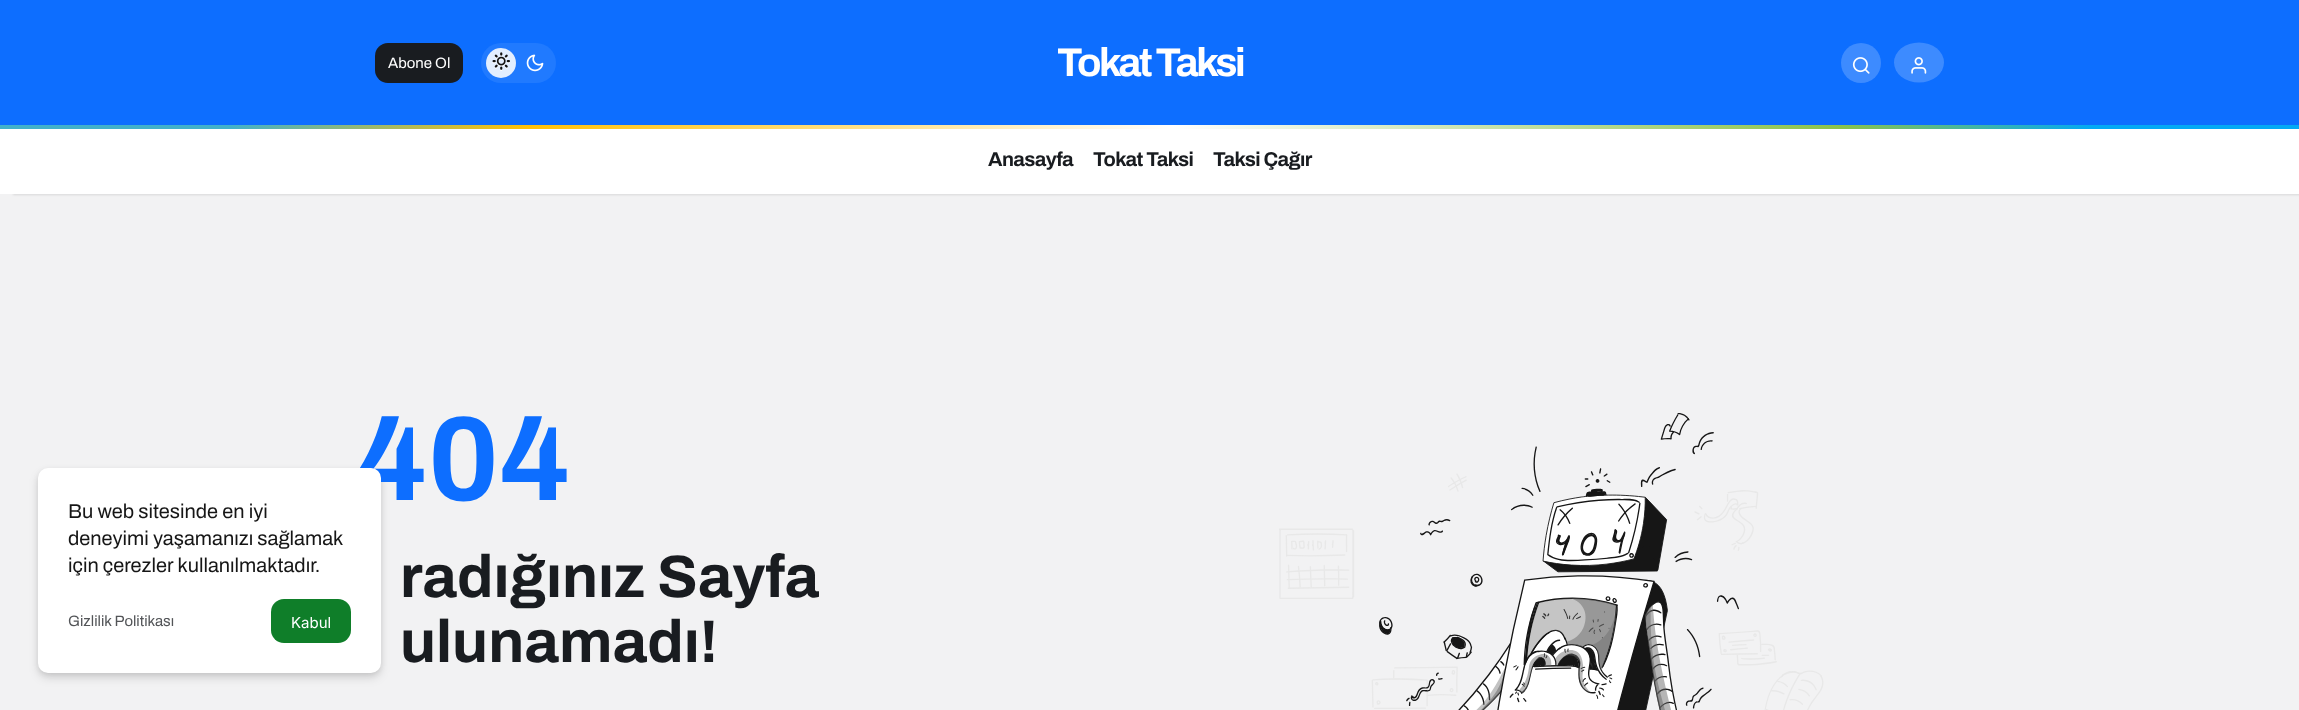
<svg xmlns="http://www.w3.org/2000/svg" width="2299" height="710">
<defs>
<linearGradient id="g1" gradientUnits="userSpaceOnUse" x1="0" y1="127" x2="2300" y2="127"><stop offset="0.1" stop-color="#42b1ca"/><stop offset="0.23" stop-color="#ffc107"/><stop offset="0.51" stop-color="#fff"/><stop offset="0.8" stop-color="#8bc34a"/><stop offset="0.91" stop-color="#03a9f4"/></linearGradient>
</defs>
<rect width="100%" height="100%" fill="#f2f2f3"/>
<rect x="13" y="126" width="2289" height="69" fill="#0000001a" filter="blur(1px)"/>
<rect width="2299" height="125" fill="#0d6eff"/>
<rect x="375" y="43" width="88" height="40" rx="13" fill="#191c20"/>
<text x="388" y="68" style="font-family:Archivo;font-size:15px;fill:#fff">Abone Ol</text>
<rect x="481" y="43" width="75" height="40" rx="20" fill="#207aff"/>
<image x="492" y="53" width="18" height="19" href="media/2.png"/>
<circle cx="501" cy="63" r="15" fill="#ffffffde"/>
<image x="492" y="52" width="18" height="18" href="media/1.png"/>
<image x="526" y="54" width="18" height="18" href="media/3.png"/>
<text x="1057" y="76" style="font-family:Archivo;font-size:40px;font-weight:bold;letter-spacing:-2.5px;fill:#fff">Tokat Taksi</text>
<circle cx="1861" cy="63" r="20" fill="#3d8bff"/>
<image x="1852" y="57" width="18" height="17" href="media/4.png"/>
<ellipse cx="1919" cy="62.5" rx="25" ry="20" fill="#3d8bff"/>
<image x="1911" y="57" width="16" height="17" href="media/5.png"/>
<rect y="129" width="2299" height="65" fill="#fff"/>
<rect y="125" width="2299" height="4" fill="url(#g1)"/>
<text x="988" y="166" style="font-family:Archivo;font-size:20px;font-weight:bold;letter-spacing:-0.6px;fill:#191c20">Anasayfa</text>
<text x="1093" y="166" style="font-family:Archivo;font-size:20px;font-weight:bold;letter-spacing:-0.6px;fill:#191c20">Tokat Taksi</text>
<text x="1213" y="166" style="font-family:Archivo;font-size:20px;font-weight:bold;letter-spacing:-0.6px;fill:#191c20">Taksi Çağır</text>
<rect x="38" y="470" width="343" height="205" rx="10" fill="#00000014" filter="blur(2.5px)"/>
<rect x="38" y="473" width="343" height="205" rx="10" fill="#0000001f" filter="blur(5px)"/>
<text x="356" y="500" style="font-family:Archivo;font-size:120px;font-weight:bold;fill:#0d6eff">404</text>
<rect x="38" y="468" width="343" height="205" rx="10" fill="#fff"/>
<text x="68" y="518" style="font-family:Archivo;font-size:20px;fill:#161616">Bu web sitesinde en iyi</text>
<text x="68" y="545" style="font-family:Archivo;font-size:20px;fill:#161616">deneyimi yaşamanızı sağlamak</text>
<text x="68" y="572" style="font-family:Archivo;font-size:20px;fill:#161616">için çerezler kullanılmaktadır.</text>
<text x="68" y="626" style="font-family:Archivo;font-size:15px;fill:#535558">Gizlilik Politikası</text>
<rect x="271" y="599" width="80" height="44" rx="13" fill="#0f7e29"/>
<text x="291" y="628" style="font-family:Inter;font-size:15px;fill:#fff">Kabul</text>
<text x="400" y="597" style="font-family:Archivo;font-size:60px;font-weight:bold;fill:#191c20">radığınız Sayfa</text>
<text x="400" y="662" style="font-family:Archivo;font-size:60px;font-weight:bold;fill:#191c20">ulunamadı!</text>
<image x="1279" y="413" width="545" height="297" href="media/6.png"/>
</svg>
